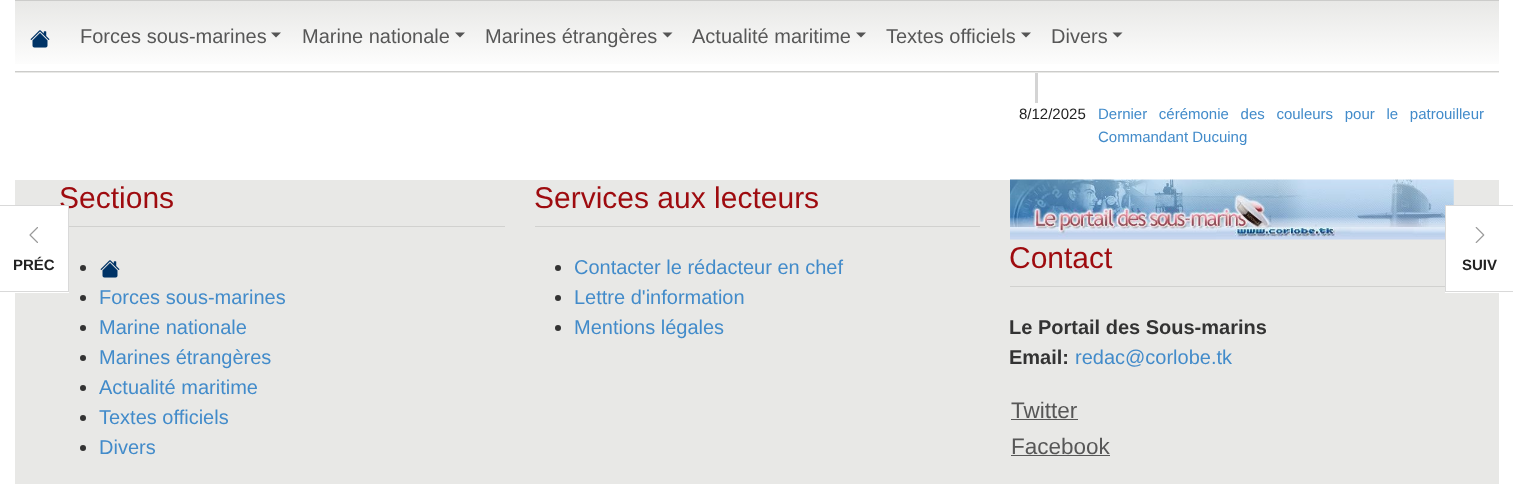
<svg xmlns="http://www.w3.org/2000/svg" width="1513" height="484">
<defs>
<linearGradient id="g1" gradientUnits="userSpaceOnUse" x1="757" y1="1.2" x2="757" y2="71"><stop offset="0" stop-color="#e8e8e6"/><stop offset="1" stop-color="#fff"/></linearGradient>
<linearGradient id="g2" gradientUnits="userSpaceOnUse" x1="757" y1="71" x2="757" y2="141"><stop offset="0" stop-color="#e8e8e6"/><stop offset="1" stop-color="#fff"/></linearGradient>
</defs>
<rect width="100%" height="100%" fill="#fff"/>
<rect x="15" y="1" width="1484" height="63" fill="url(#g1)"/>
<rect x="15" y="72" width="1484" height="1" fill="url(#g2)"/>
<rect x="15" width="1484" height="1" fill="#ccccca"/>
<rect x="15" y="71" width="1484" height="1" fill="#ccccca"/>
<image x="30" y="30" width="20" height="18" href="media/1.png"/>
<text x="80" y="43" style="font-family:Liberation Sans;font-size:20px;fill:#575757">Forces sous-marines</text>
<path d="M271 32.5h10l-5 5z" fill="#555"/>
<text x="302" y="43" style="font-family:Liberation Sans;font-size:20px;fill:#575757">Marine nationale</text>
<path d="M455 32.5h10l-5 5z" fill="#555"/>
<text x="485" y="43" style="font-family:Liberation Sans;font-size:20px;fill:#575757">Marines étrangères</text>
<path d="M662.5 32.5h10l-5 5z" fill="#555"/>
<text x="692" y="43" style="font-family:Liberation Sans;font-size:20px;fill:#575757">Actualité maritime</text>
<path d="M856 32.5h10l-5 5z" fill="#555"/>
<text x="886" y="43" style="font-family:Liberation Sans;font-size:20px;fill:#575757">Textes officiels</text>
<path d="M1021 32.5h10l-5 5z" fill="#555"/>
<text x="1051" y="43" style="font-family:Liberation Sans;font-size:20px;fill:#575757">Divers</text>
<path d="M1112.5 32.5h10l-5 5z" fill="#555"/>
<rect x="1035" y="73" width="3" height="30" fill="#d4d4d4"/>
<text x="1019" y="119" style="font-family:Liberation Sans;font-size:15px;fill:#222">8/12/2025</text>
<text x="1098" y="119" word-spacing="7.5" style="font-family:Liberation Sans;font-size:15px;fill:#428bca">Dernier cérémonie des couleurs pour le patrouilleur</text>
<text x="1098" y="142" style="font-family:Liberation Sans;font-size:15px;fill:#428bca">Commandant Ducuing</text>
<rect x="15" y="180" width="1484" height="304" fill="#e8e8e6"/>
<text x="59" y="208" style="font-family:Liberation Sans;font-size:30px;fill:#9e0b0f">Sections</text>
<rect x="15" y="205" width="54" height="88" fill="#fff"/>
<path d="M0 205h69l-1 1h-68z" fill="#d9d9d9"/>
<path d="M69 205v87l-1-1v-85z" fill="#00000026"/>
<path d="M69 292h-69v-1h68z" fill="#00000026"/>
<image x="29" y="227" width="9" height="16" href="media/2.png"/>
<text x="13" y="270" style="font-family:Liberation Sans;font-size:15px;font-weight:bold;fill:#222">PRÉC</text>
<image x="1010" y="179" width="444" height="61" href="media/5.png"/>
<rect x="1445" y="205" width="54" height="88" fill="#fff"/>
<path d="M1445 205h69v1h-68z" fill="#d9d9d9"/>
<path d="M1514 292h-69l1-1h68z" fill="#d9d9d9"/>
<path d="M1445 292v-87l1 1v85z" fill="#00000026"/>
<image x="1475" y="227" width="10" height="16" href="media/3.png"/>
<text x="1462" y="270" style="font-family:Liberation Sans;font-size:15px;font-weight:bold;fill:#222">SUIV</text>
<rect x="69" y="226" width="436" height="1" fill="#d1d1cf"/>
<circle cx="83" cy="268" r="3" fill="#333"/>
<image x="100" y="260" width="20" height="18" href="media/4.png"/>
<circle cx="83" cy="298" r="3" fill="#333"/>
<text x="99" y="304" style="font-family:Liberation Sans;font-size:20px;fill:#428bca">Forces sous-marines</text>
<circle cx="83" cy="328" r="3" fill="#333"/>
<text x="99" y="334" style="font-family:Liberation Sans;font-size:20px;fill:#428bca">Marine nationale</text>
<circle cx="83" cy="358" r="3" fill="#333"/>
<text x="99" y="364" style="font-family:Liberation Sans;font-size:20px;fill:#428bca">Marines étrangères</text>
<circle cx="83" cy="388" r="3" fill="#333"/>
<text x="99" y="394" style="font-family:Liberation Sans;font-size:20px;fill:#428bca">Actualité maritime</text>
<circle cx="83" cy="418" r="3" fill="#333"/>
<text x="99" y="424" style="font-family:Liberation Sans;font-size:20px;fill:#428bca">Textes officiels</text>
<circle cx="83" cy="448" r="3" fill="#333"/>
<text x="99" y="454" style="font-family:Liberation Sans;font-size:20px;fill:#428bca">Divers</text>
<rect x="535" y="226" width="445" height="1" fill="#d1d1cf"/>
<text x="534" y="208" style="font-family:Liberation Sans;font-size:30px;fill:#9e0b0f">Services aux lecteurs</text>
<circle cx="558" cy="268" r="3" fill="#333"/>
<text x="574" y="274" style="font-family:Liberation Sans;font-size:20px;fill:#428bca">Contacter le rédacteur en chef</text>
<circle cx="558" cy="298" r="3" fill="#333"/>
<text x="574" y="304" style="font-family:Liberation Sans;font-size:20px;fill:#428bca">Lettre d'information</text>
<circle cx="558" cy="328" r="3" fill="#333"/>
<text x="574" y="334" style="font-family:Liberation Sans;font-size:20px;fill:#428bca">Mentions légales</text>
<rect x="1010" y="286" width="435" height="1" fill="#d1d1cf"/>
<text x="1009" y="268" style="font-family:Liberation Sans;font-size:30px;fill:#9e0b0f">Contact</text>
<text x="1009" y="334" style="font-family:Liberation Sans;font-size:20px;font-weight:bold;fill:#333">Le Portail des Sous-marins</text>
<text x="1009" y="364" style="font-family:Liberation Sans;font-size:20px;font-weight:bold;fill:#333">Email:</text>
<text x="1075" y="364" style="font-family:Liberation Sans;font-size:20px;fill:#428bca">redac@corlobe.tk</text>
<text x="1011" y="418" style="font-family:Liberation Sans;font-size:22.5px;fill:#575757">Twitter</text>
<rect x="1011" y="419" width="67" height="1" fill="#575757"/>
<text x="1011" y="454" style="font-family:Liberation Sans;font-size:22.5px;fill:#575757">Facebook</text>
<rect x="1011" y="455" width="99" height="1" fill="#575757"/>
</svg>
